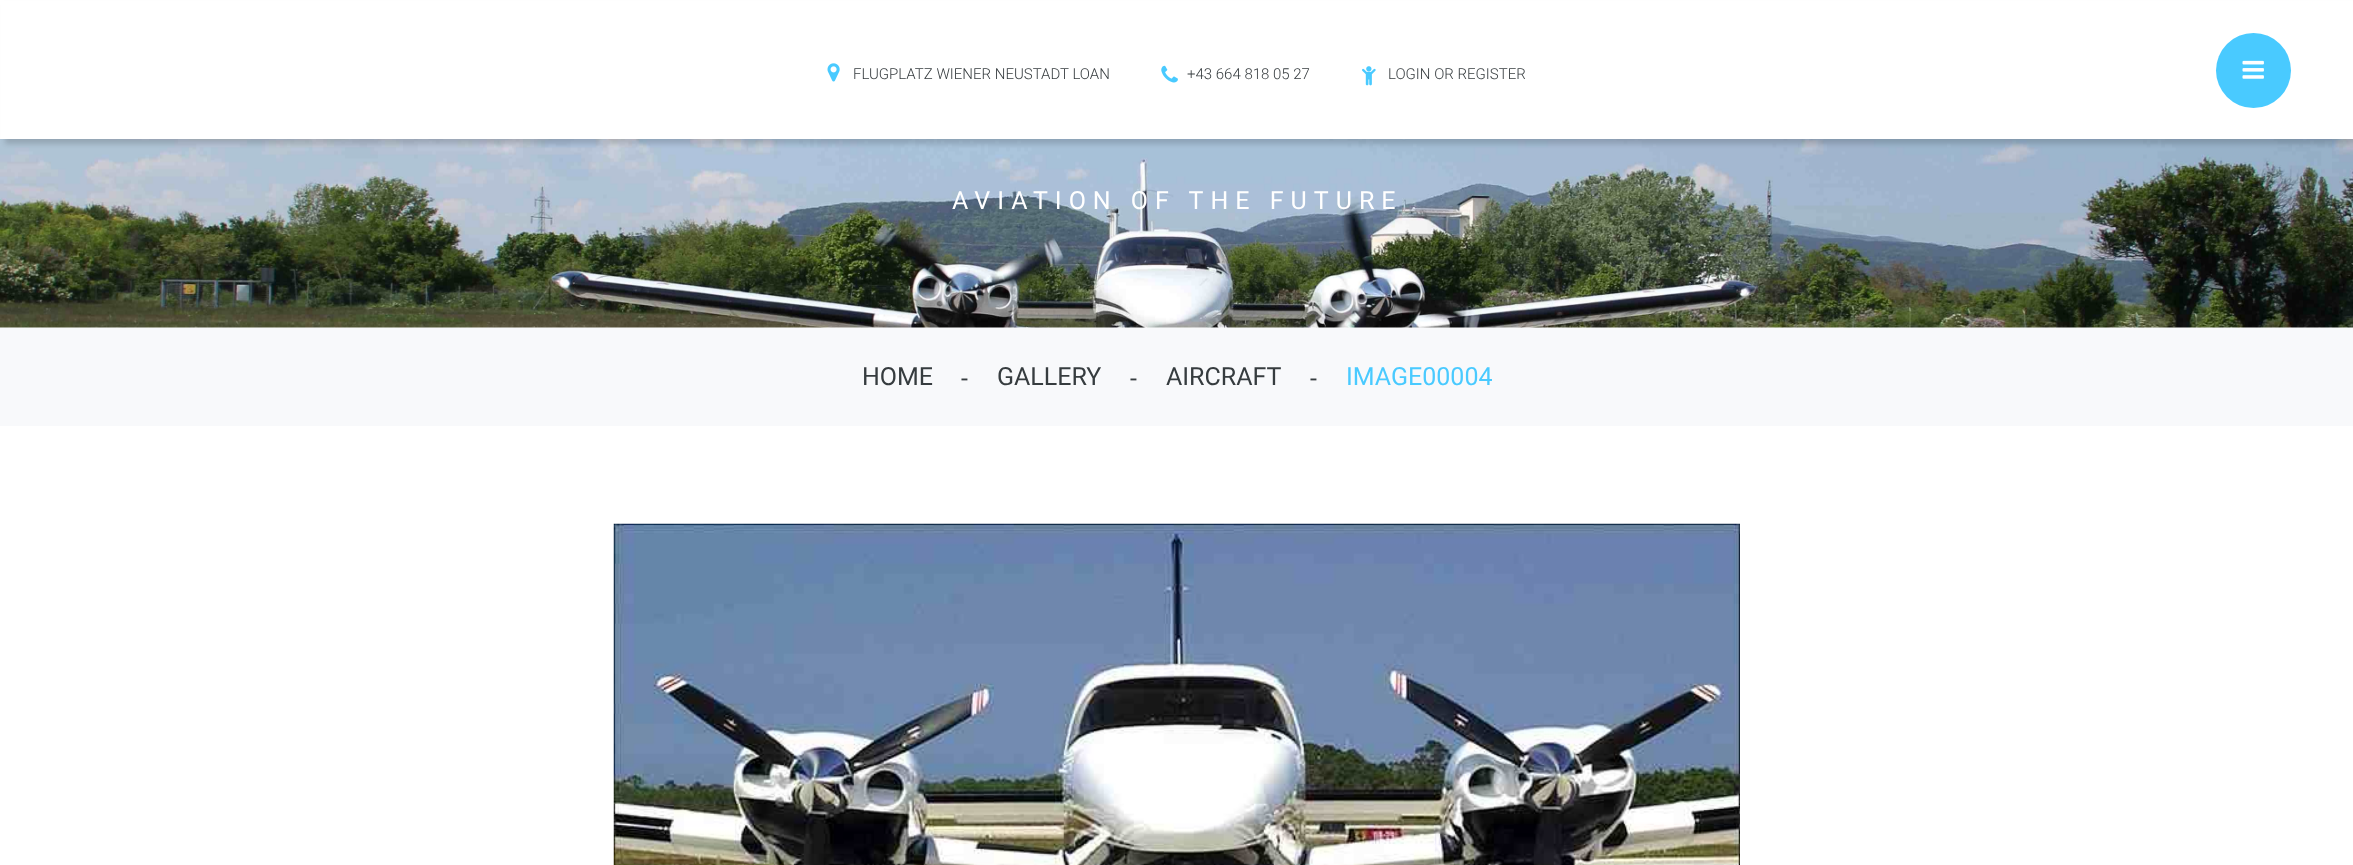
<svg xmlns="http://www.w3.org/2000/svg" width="2353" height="865">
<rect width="100%" height="100%" fill="#fff"/>
<image x="0" y="139" width="2353" height="189" href="media/1.png"/>
<rect x="5" y="5" width="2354" height="139" fill="#00000026" filter="blur(2.5px)"/>
<rect x="1" y="1" width="2352" height="138" fill="#fff"/>
<image x="827" y="63" width="13" height="19" href="media/2.png"/>
<text x="853" y="79" style="font-family:Roboto;font-size:15px;font-weight:300;fill:#363c3f">FLUGPLATZ WIENER NEUSTADT LOAN</text>
<image x="1161" y="65" width="17" height="18" href="media/3.png"/>
<text x="1187" y="79" style="font-family:Roboto;font-size:15px;font-weight:300;fill:#363c3f">+43 664 818 05 27</text>
<image x="1362" y="66" width="14" height="20" href="media/4.png"/>
<text x="1388" y="79" style="font-family:Roboto;font-size:15px;font-weight:300;fill:#363c3f">LOGIN OR REGISTER</text>
<circle cx="2253.5" cy="70.5" r="37.5" fill="#49caff"/>
<image x="2242" y="60" width="22" height="19" href="media/5.png"/>
<text x="952" y="209" style="font-family:Roboto;font-size:25px;letter-spacing:7px;fill:#fff">AVIATION OF THE FUTURE</text>
<rect y="328" width="2353" height="98" fill="#f8f9fb"/>
<text x="862" y="385" style="font-family:Roboto;font-size:25px;fill:#363c3f">HOME</text>
<text x="961" y="387" style="font-family:Roboto;font-size:25px;fill:#363c3f">-</text>
<text x="997" y="385" style="font-family:Roboto;font-size:25px;fill:#363c3f">GALLERY</text>
<text x="1130" y="387" style="font-family:Roboto;font-size:25px;fill:#363c3f">-</text>
<text x="1166" y="385" style="font-family:Roboto;font-size:25px;fill:#363c3f">AIRCRAFT</text>
<text x="1310" y="387" style="font-family:Roboto;font-size:25px;fill:#363c3f">-</text>
<text x="1346" y="385" style="font-family:Roboto;font-size:25px;fill:#49caff">IMAGE00004</text>
<image x="613" y="523" width="1127" height="342" href="media/6.png"/>
</svg>
